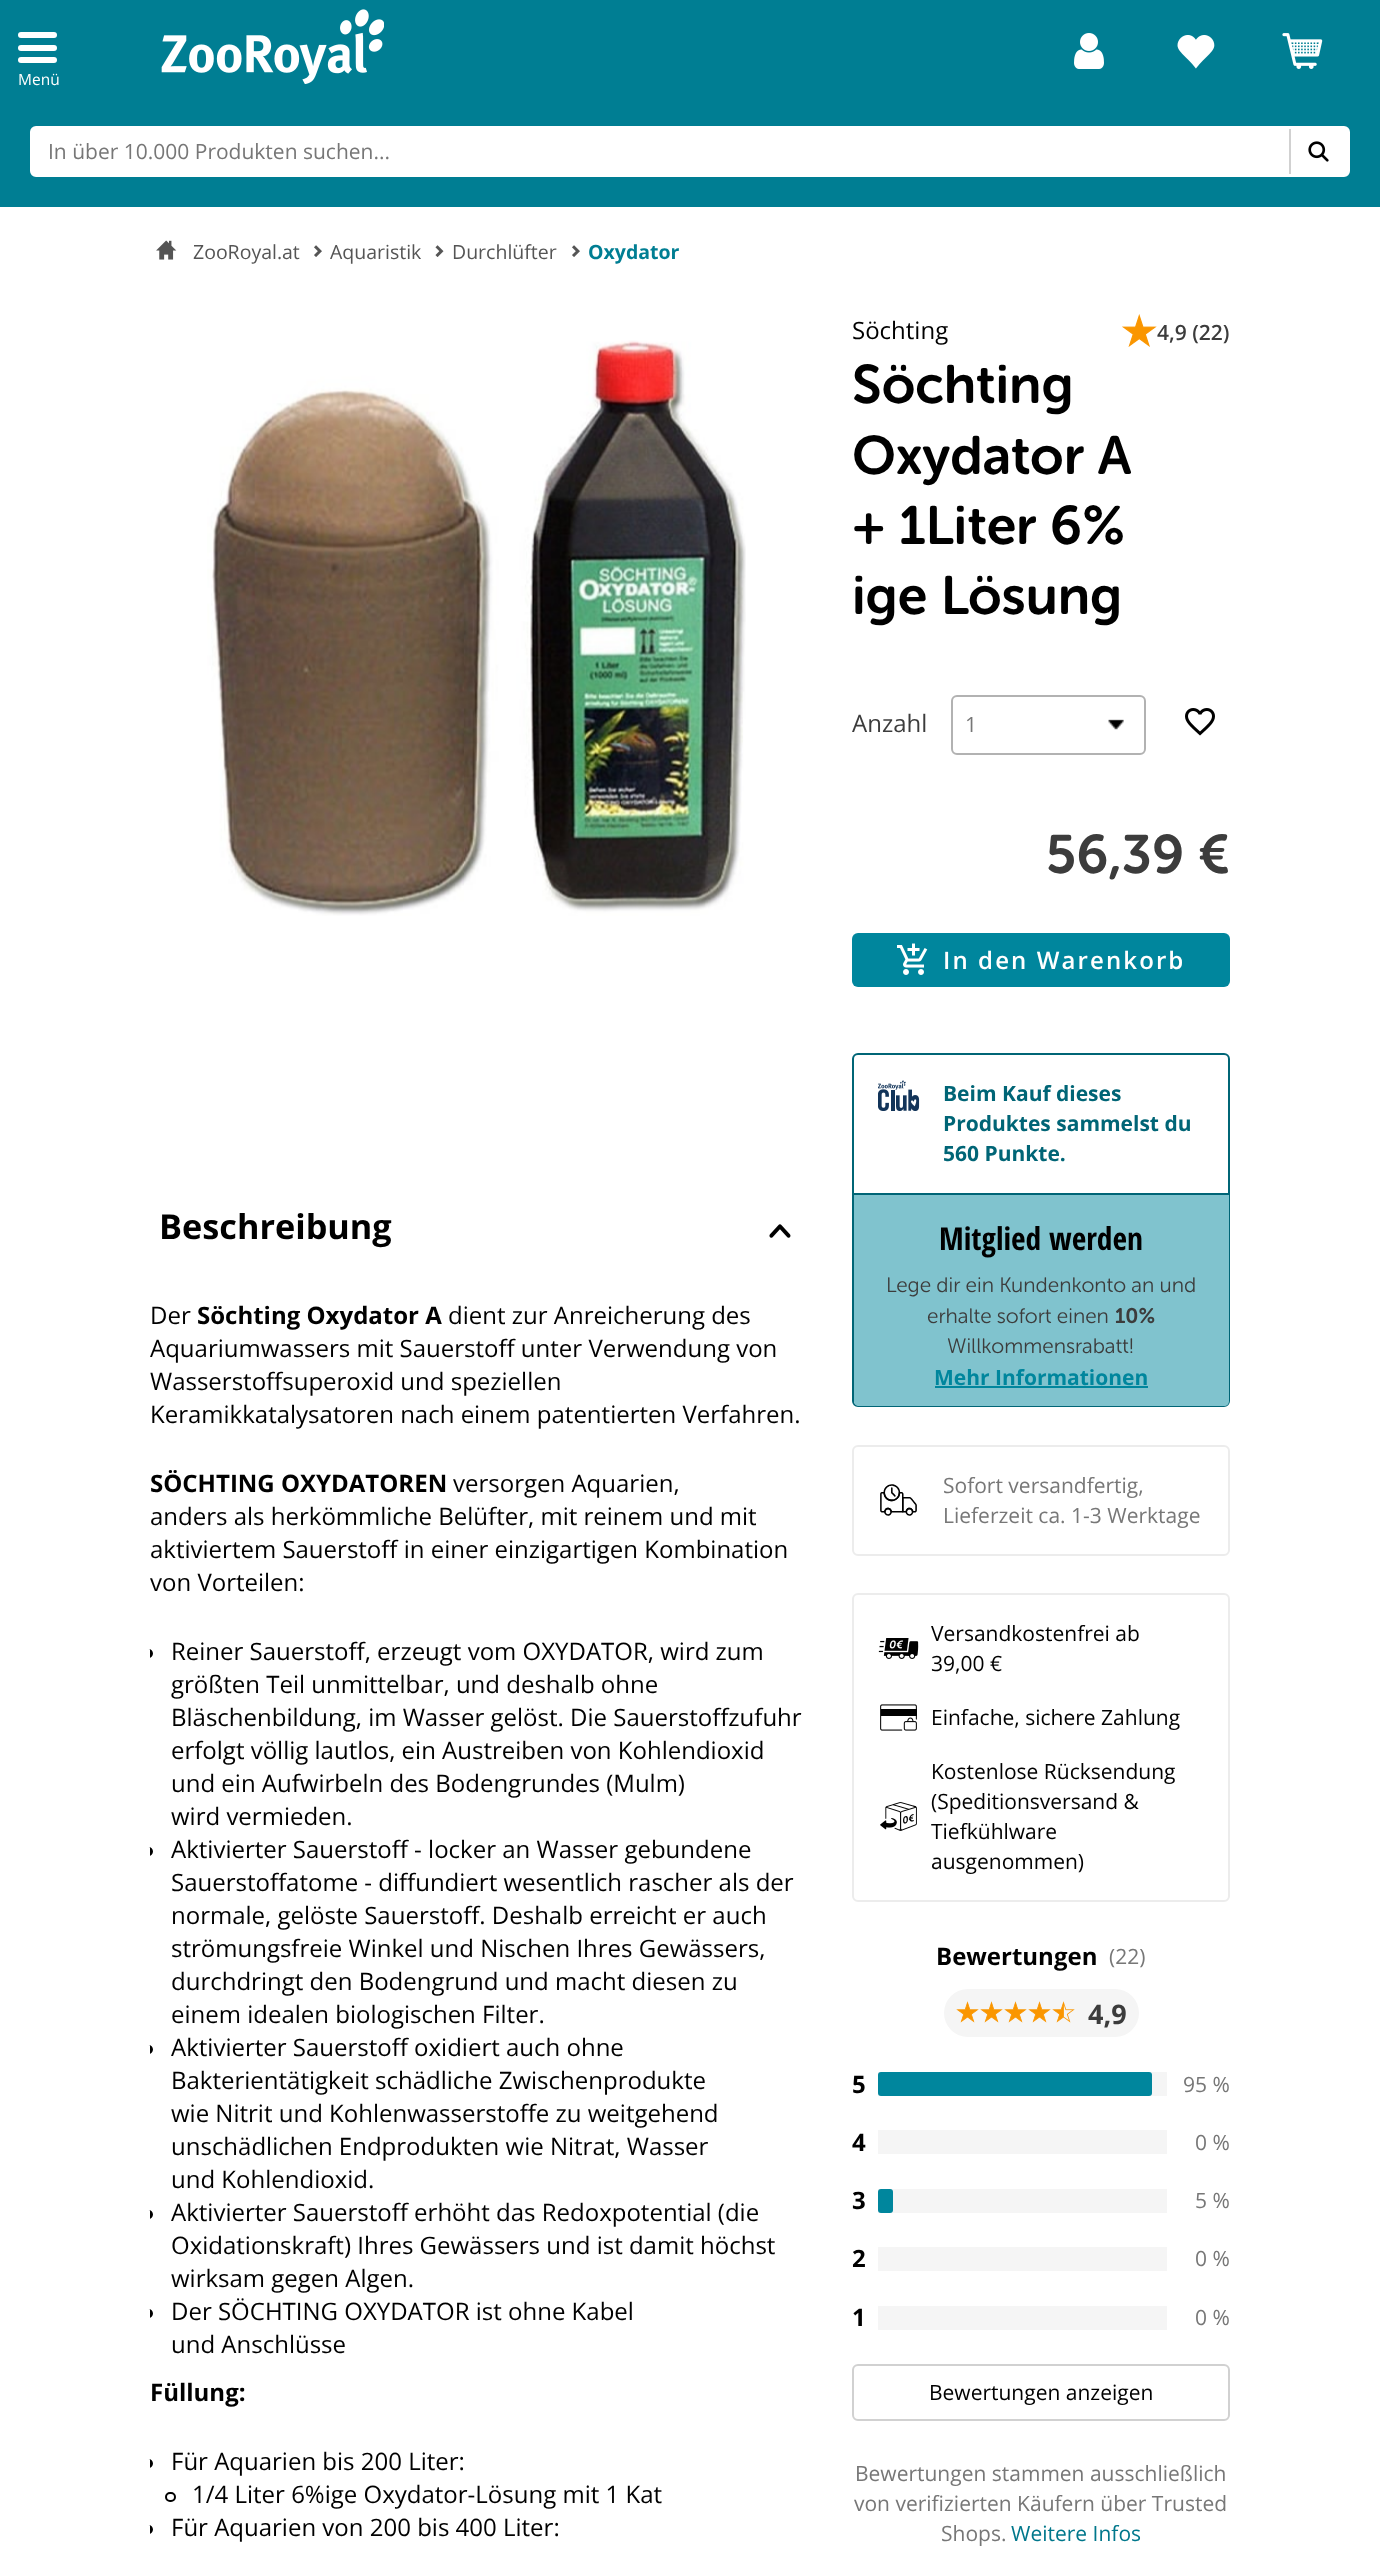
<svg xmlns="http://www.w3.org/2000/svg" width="1380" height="2551">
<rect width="100%" height="100%" fill="#fff"/>
<rect width="1380" height="207" fill="#007e93"/>
<image x="161" y="9" width="223" height="75" href="media/1.png"/>
<image x="1074" y="33" width="30" height="36" href="media/2.png"/>
<image x="1177" y="35" width="38" height="34" href="media/3.png"/>
<image x="1282" y="33" width="41" height="36" href="media/4.png"/>
<rect x="18" y="32" width="39" height="6" rx="3" fill="#fff"/>
<rect x="18" y="45" width="39" height="6" rx="3" fill="#fff"/>
<rect x="18" y="57" width="39" height="6" rx="3" fill="#fff"/>
<text x="18" y="85" style="font-family:Open Sans;font-size:15.5px;fill:#fff">Menü</text>
<rect x="31.5" y="127.5" width="1317" height="48" rx="4.5" fill="none" stroke="#fff" stroke-width="3"/>
<rect x="33" y="129" width="1256" height="45" fill="#fff"/>
<text x="48" y="159" style="font-family:Open Sans;font-size:21px;fill:#777">In über 10.000 Produkten suchen...</text>
<rect x="1291" y="129" width="56" height="45" fill="#fff"/>
<rect x="1289" y="129" width="2" height="45" fill="#d1d1d1"/>
<image x="1308" y="141" width="21" height="21" href="media/5.png"/>
<image x="156" y="240" width="21" height="20" href="media/6.png"/>
<text x="193" y="259" style="font-family:Open Sans;font-size:19.5px;fill:#555">ZooRoyal.at</text>
<image x="314" y="245" width="8" height="12" href="media/7.png"/>
<text x="330" y="259" style="font-family:Open Sans;font-size:19.5px;fill:#555">Aquaristik</text>
<image x="435" y="245" width="9" height="12" href="media/8.png"/>
<text x="452" y="259" style="font-family:Open Sans;font-size:19.5px;fill:#555">Durchlüfter</text>
<image x="572" y="245" width="8" height="12" href="media/7.png"/>
<text x="588" y="259" style="font-family:Open Sans;font-size:19.5px;font-weight:bold;fill:#007e93">Oxydator</text>
<text x="852" y="339" style="font-family:Open Sans;font-size:24px;fill:#000">Söchting</text>
<image x="1122" y="314" width="35" height="33" href="media/9.png"/>
<text x="1157" y="340" style="font-family:Open Sans;font-size:21px;font-weight:600;fill:#3c3c3c">4,9 (22)</text>
<image x="207" y="340" width="539" height="576" href="media/10.png"/>
<text x="852" y="403" style="font-family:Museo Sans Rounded;font-size:54px;font-weight:600;fill:#000">Söchting</text>
<text x="852" y="474" style="font-family:Museo Sans Rounded;font-size:54px;font-weight:600;fill:#000">Oxydator A</text>
<text x="852" y="544" style="font-family:Museo Sans Rounded;font-size:54px;font-weight:600;fill:#000">+ 1Liter 6%</text>
<text x="852" y="614" style="font-family:Museo Sans Rounded;font-size:54px;font-weight:600;fill:#000">ige Lösung</text>
<text x="852" y="732" style="font-family:Open Sans;font-size:24px;fill:#3c3c3c">Anzahl</text>
<image x="1108" y="719" width="16" height="11" href="media/11.png"/>
<rect x="952" y="696" width="193" height="58" rx="5" fill="none" stroke="#b2b2b2" stroke-width="2"/>
<text x="965" y="732" style="font-family:Open Sans;font-size:21px;fill:#777">1</text>
<image x="1185" y="708" width="30" height="28" href="media/12.png"/>
<text x="1046" y="873" style="font-family:Museo Sans Rounded;font-size:54px;font-weight:600;fill:#3c3c3c">56,39 €</text>
<rect x="852" y="933" width="378" height="54" rx="6" fill="#00869d"/>
<image x="897" y="943" width="31" height="32" href="media/13.png"/>
<text x="943" y="969" style="font-family:Open Sans;font-size:24px;font-weight:600;letter-spacing:2.1px;fill:#fff">In den Warenkorb</text>
<text x="159" y="1239" style="font-family:Open Sans;font-size:34.25px;font-weight:bold;fill:#000">Beschreibung</text>
<image x="769" y="1224" width="22" height="14" href="media/14.png"/>
<text x="150" y="1324" style="font-family:Open Sans;font-size:24px;fill:#000">Der</text>
<text x="197" y="1324" style="font-family:Open Sans;font-size:24px;font-weight:bold;fill:#000">Söchting Oxydator A</text>
<text x="448" y="1324" style="font-family:Open Sans;font-size:24px;fill:#000">dient zur Anreicherung des</text>
<text x="150" y="1357" style="font-family:Open Sans;font-size:24px;fill:#000">Aquariumwassers mit Sauerstoff unter Verwendung von</text>
<text x="150" y="1390" style="font-family:Open Sans;font-size:24px;fill:#000">Wasserstoffsuperoxid und speziellen</text>
<text x="150" y="1423" style="font-family:Open Sans;font-size:24px;fill:#000">Keramikkatalysatoren nach einem patentierten Verfahren.</text>
<text x="150" y="1492" style="font-family:Open Sans;font-size:24px;font-weight:bold;fill:#000">SÖCHTING OXYDATOREN</text>
<text x="453" y="1492" style="font-family:Open Sans;font-size:24px;fill:#000">versorgen Aquarien,</text>
<text x="150" y="1525" style="font-family:Open Sans;font-size:24px;fill:#000">anders als herkömmliche Belüfter, mit reinem und mit</text>
<text x="150" y="1558" style="font-family:Open Sans;font-size:24px;fill:#000">aktiviertem Sauerstoff in einer einzigartigen Kombination</text>
<text x="150" y="1591" style="font-family:Open Sans;font-size:24px;fill:#000">von Vorteilen:</text>
<path d="M150 1649h-1.5c2.5 0 4.5 2 4.5 4.5c0 2.5-2 4.5-4.5 4.5h1.5z" fill="#000"/>
<text x="171" y="1660" style="font-family:Open Sans;font-size:24px;fill:#000">Reiner Sauerstoff, erzeugt vom OXYDATOR, wird zum</text>
<text x="171" y="1693" style="font-family:Open Sans;font-size:24px;fill:#000">größten Teil unmittelbar, und deshalb ohne</text>
<text x="171" y="1726" style="font-family:Open Sans;font-size:24px;fill:#000">Bläschenbildung, im Wasser gelöst. Die Sauerstoffzufuhr</text>
<text x="171" y="1759" style="font-family:Open Sans;font-size:24px;fill:#000">erfolgt völlig lautlos, ein Austreiben von Kohlendioxid</text>
<text x="171" y="1792" style="font-family:Open Sans;font-size:24px;fill:#000">und ein Aufwirbeln des Bodengrundes (Mulm)</text>
<text x="171" y="1825" style="font-family:Open Sans;font-size:24px;fill:#000">wird vermieden.</text>
<path d="M150 1847h-1.5c2.5 0 4.5 2 4.5 4.5c0 2.5-2 4.5-4.5 4.5h1.5z" fill="#000"/>
<text x="171" y="1858" style="font-family:Open Sans;font-size:24px;fill:#000">Aktivierter Sauerstoff - locker an Wasser gebundene</text>
<text x="171" y="1891" style="font-family:Open Sans;font-size:24px;fill:#000">Sauerstoffatome - diffundiert wesentlich rascher als der</text>
<text x="171" y="1924" style="font-family:Open Sans;font-size:24px;fill:#000">normale, gelöste Sauerstoff. Deshalb erreicht er auch</text>
<text x="171" y="1957" style="font-family:Open Sans;font-size:24px;fill:#000">strömungsfreie Winkel und Nischen Ihres Gewässers,</text>
<text x="171" y="1990" style="font-family:Open Sans;font-size:24px;fill:#000">durchdringt den Bodengrund und macht diesen zu</text>
<text x="171" y="2023" style="font-family:Open Sans;font-size:24px;fill:#000">einem idealen biologischen Filter.</text>
<path d="M150 2045h-1.5c2.5 0 4.5 2 4.5 4.5c0 2.5-2 4.5-4.5 4.5h1.5z" fill="#000"/>
<text x="171" y="2056" style="font-family:Open Sans;font-size:24px;fill:#000">Aktivierter Sauerstoff oxidiert auch ohne</text>
<text x="171" y="2089" style="font-family:Open Sans;font-size:24px;fill:#000">Bakterientätigkeit schädliche Zwischenprodukte</text>
<text x="171" y="2122" style="font-family:Open Sans;font-size:24px;fill:#000">wie Nitrit und Kohlenwasserstoffe zu weitgehend</text>
<text x="171" y="2155" style="font-family:Open Sans;font-size:24px;fill:#000">unschädlichen Endprodukten wie Nitrat, Wasser</text>
<text x="171" y="2188" style="font-family:Open Sans;font-size:24px;fill:#000">und Kohlendioxid.</text>
<path d="M150 2210h-1.5c2.5 0 4.5 2 4.5 4.5c0 2.5-2 4.5-4.5 4.5h1.5z" fill="#000"/>
<text x="171" y="2221" style="font-family:Open Sans;font-size:24px;fill:#000">Aktivierter Sauerstoff erhöht das Redoxpotential (die</text>
<text x="171" y="2254" style="font-family:Open Sans;font-size:24px;fill:#000">Oxidationskraft) Ihres Gewässers und ist damit höchst</text>
<text x="171" y="2287" style="font-family:Open Sans;font-size:24px;fill:#000">wirksam gegen Algen.</text>
<path d="M150 2309h-1.5c2.5 0 4.5 2 4.5 4.5c0 2.5-2 4.5-4.5 4.5h1.5z" fill="#000"/>
<text x="171" y="2320" style="font-family:Open Sans;font-size:24px;fill:#000">Der SÖCHTING OXYDATOR ist ohne Kabel</text>
<text x="171" y="2353" style="font-family:Open Sans;font-size:24px;fill:#000">und Anschlüsse</text>
<text x="150" y="2401" style="font-family:Open Sans;font-size:24px;font-weight:bold;fill:#000">Füllung:</text>
<path d="M150 2459h-1.5c2.5 0 4.5 2 4.5 4.5c0 2.5-2 4.5-4.5 4.5h1.5z" fill="#000"/>
<text x="171" y="2470" style="font-family:Open Sans;font-size:24px;fill:#000">Für Aquarien bis 200 Liter:</text>
<rect x="166" y="2493" width="9" height="8" rx="4" fill="none" stroke="#000" stroke-width="2"/>
<text x="192" y="2503" style="font-family:Open Sans;font-size:24px;fill:#000">1/4 Liter 6%ige Oxydator-Lösung mit 1 Kat</text>
<path d="M150 2525h-1.5c2.5 0 4.5 2 4.5 4.5c0 2.5-2 4.5-4.5 4.5h1.5z" fill="#000"/>
<text x="171" y="2536" style="font-family:Open Sans;font-size:24px;fill:#000">Für Aquarien von 200 bis 400 Liter:</text>
<rect x="853" y="1054" width="376" height="352" rx="5" fill="none" stroke="#006576" stroke-width="2"/>
<image x="878" y="1080" width="42" height="31" href="media/15.png"/>
<text x="943" y="1101" style="font-family:Open Sans;font-size:21px;font-weight:bold;fill:#006576">Beim Kauf dieses</text>
<text x="943" y="1131" style="font-family:Open Sans;font-size:21px;font-weight:bold;fill:#006576">Produktes sammelst du</text>
<text x="943" y="1161" style="font-family:Open Sans;font-size:21px;font-weight:bold;fill:#006576">560 Punkte.</text>
<path d="M854 1193h375v208c0 3-2 5-5 5h-365c-3 0-5-2-5-5z" fill="#80c3ce"/>
<rect x="854" y="1193" width="375" height="2" fill="#006576"/>
<text x="939" y="1250" style="font-family:Open Sans Condensed;font-size:31.5px;font-weight:bold;fill:#000">Mitglied werden</text>
<text x="886" y="1292" style="font-family:Museo Sans Rounded;font-size:21px;font-weight:300;fill:#3c3c3c">Lege dir ein Kundenkonto an und</text>
<text x="927" y="1323" style="font-family:Museo Sans Rounded;font-size:21px;font-weight:300;fill:#3c3c3c">erhalte sofort einen</text>
<text x="1115" y="1323" style="font-family:Museo Sans Rounded;font-size:21px;font-weight:600;fill:#3c3c3c">10%</text>
<text x="947" y="1353" style="font-family:Museo Sans Rounded;font-size:21px;font-weight:300;fill:#3c3c3c">Willkommensrabatt!</text>
<text x="934" y="1385" style="font-family:Open Sans;font-size:21px;font-weight:bold;fill:#00869d">Mehr Informationen</text>
<rect x="935" y="1386" width="213" height="2" fill="#00869d"/>
<rect x="853" y="1446" width="376" height="109" rx="5" fill="none" stroke="#ececec" stroke-width="2"/>
<image x="880" y="1484" width="37" height="32" href="media/16.png"/>
<text x="943" y="1493" style="font-family:Open Sans;font-size:21px;fill:#777">Sofort versandfertig,</text>
<text x="943" y="1523" style="font-family:Open Sans;font-size:21px;fill:#777">Lieferzeit ca. 1-3 Werktage</text>
<rect x="853" y="1594" width="376" height="307" rx="5" fill="none" stroke="#ececec" stroke-width="2"/>
<text x="931" y="1641" style="font-family:Open Sans;font-size:21px;fill:#000">Versandkostenfrei ab</text>
<image x="878" y="1638" width="41" height="21" href="media/17.png"/>
<text x="931" y="1671" style="font-family:Open Sans;font-size:21px;fill:#000">39,00 €</text>
<image x="880" y="1704" width="37" height="27" href="media/18.png"/>
<text x="931" y="1725" style="font-family:Open Sans;font-size:21px;fill:#000">Einfache, sichere Zahlung</text>
<text x="931" y="1779" style="font-family:Open Sans;font-size:21px;fill:#000">Kostenlose Rücksendung</text>
<image x="880" y="1802" width="37" height="29" href="media/19.png"/>
<text x="931" y="1809" style="font-family:Open Sans;font-size:21px;fill:#000">(Speditionsversand &amp;</text>
<text x="931" y="1839" style="font-family:Open Sans;font-size:21px;fill:#000">Tiefkühlware</text>
<text x="931" y="1869" style="font-family:Open Sans;font-size:21px;fill:#000">ausgenommen)</text>
<text x="936" y="1965" style="font-family:Open Sans;font-size:24px;font-weight:bold;fill:#000">Bewertungen</text>
<text x="1109" y="1964" style="font-family:Open Sans;font-size:21px;fill:#777">(22)</text>
<rect x="944" y="1989" width="195" height="48" rx="24" fill="#f5f5f5"/>
<image x="956" y="2001" width="23" height="22" href="media/20.png"/>
<image x="980" y="2001" width="23" height="22" href="media/20.png"/>
<image x="1004" y="2001" width="23" height="22" href="media/20.png"/>
<image x="1028" y="2001" width="23" height="22" href="media/20.png"/>
<image x="1052" y="2001" width="23" height="22" href="media/21.png"/>
<text x="1088" y="2024" style="font-family:Open Sans;font-size:27px;font-weight:bold;fill:#3c3c3c">4,9</text>
<text x="852" y="2093" style="font-family:Open Sans;font-size:24px;font-weight:bold;fill:#000">5</text>
<rect x="878" y="2072" width="289" height="24" fill="#f5f5f5"/>
<rect x="878" y="2072" width="274" height="24" rx="3" fill="#00869d"/>
<text x="1183" y="2092" style="font-family:Open Sans;font-size:21px;fill:#777">95 %</text>
<text x="852" y="2151" style="font-family:Open Sans;font-size:24px;font-weight:bold;fill:#000">4</text>
<rect x="878" y="2130" width="289" height="24" fill="#f5f5f5"/>
<text x="1195" y="2150" style="font-family:Open Sans;font-size:21px;fill:#777">0 %</text>
<text x="852" y="2209" style="font-family:Open Sans;font-size:24px;font-weight:bold;fill:#000">3</text>
<rect x="878" y="2189" width="289" height="24" fill="#f5f5f5"/>
<rect x="878" y="2189" width="15" height="24" rx="3" fill="#00869d"/>
<text x="1195" y="2208" style="font-family:Open Sans;font-size:21px;fill:#777">5 %</text>
<text x="852" y="2267" style="font-family:Open Sans;font-size:24px;font-weight:bold;fill:#000">2</text>
<rect x="878" y="2247" width="289" height="24" fill="#f5f5f5"/>
<text x="1195" y="2266" style="font-family:Open Sans;font-size:21px;fill:#777">0 %</text>
<text x="852" y="2326" style="font-family:Open Sans;font-size:24px;font-weight:bold;fill:#000">1</text>
<rect x="878" y="2306" width="289" height="24" fill="#f5f5f5"/>
<text x="1195" y="2325" style="font-family:Open Sans;font-size:21px;fill:#777">0 %</text>
<rect x="853" y="2365" width="376" height="55" rx="5" fill="none" stroke="#d1d1d1" stroke-width="2"/>
<text x="929" y="2400" style="font-family:Open Sans;font-size:21px;fill:#000">Bewertungen anzeigen</text>
<text x="855" y="2481" style="font-family:Open Sans;font-size:21px;fill:#777">Bewertungen stammen ausschließlich</text>
<text x="854" y="2511" style="font-family:Open Sans;font-size:21px;fill:#777">von verifizierten Käufern über Trusted</text>
<text x="941" y="2541" style="font-family:Open Sans;font-size:21px;fill:#777">Shops.</text>
<text x="1011" y="2541" style="font-family:Open Sans;font-size:21px;fill:#00778b">Weitere Infos</text>
</svg>
